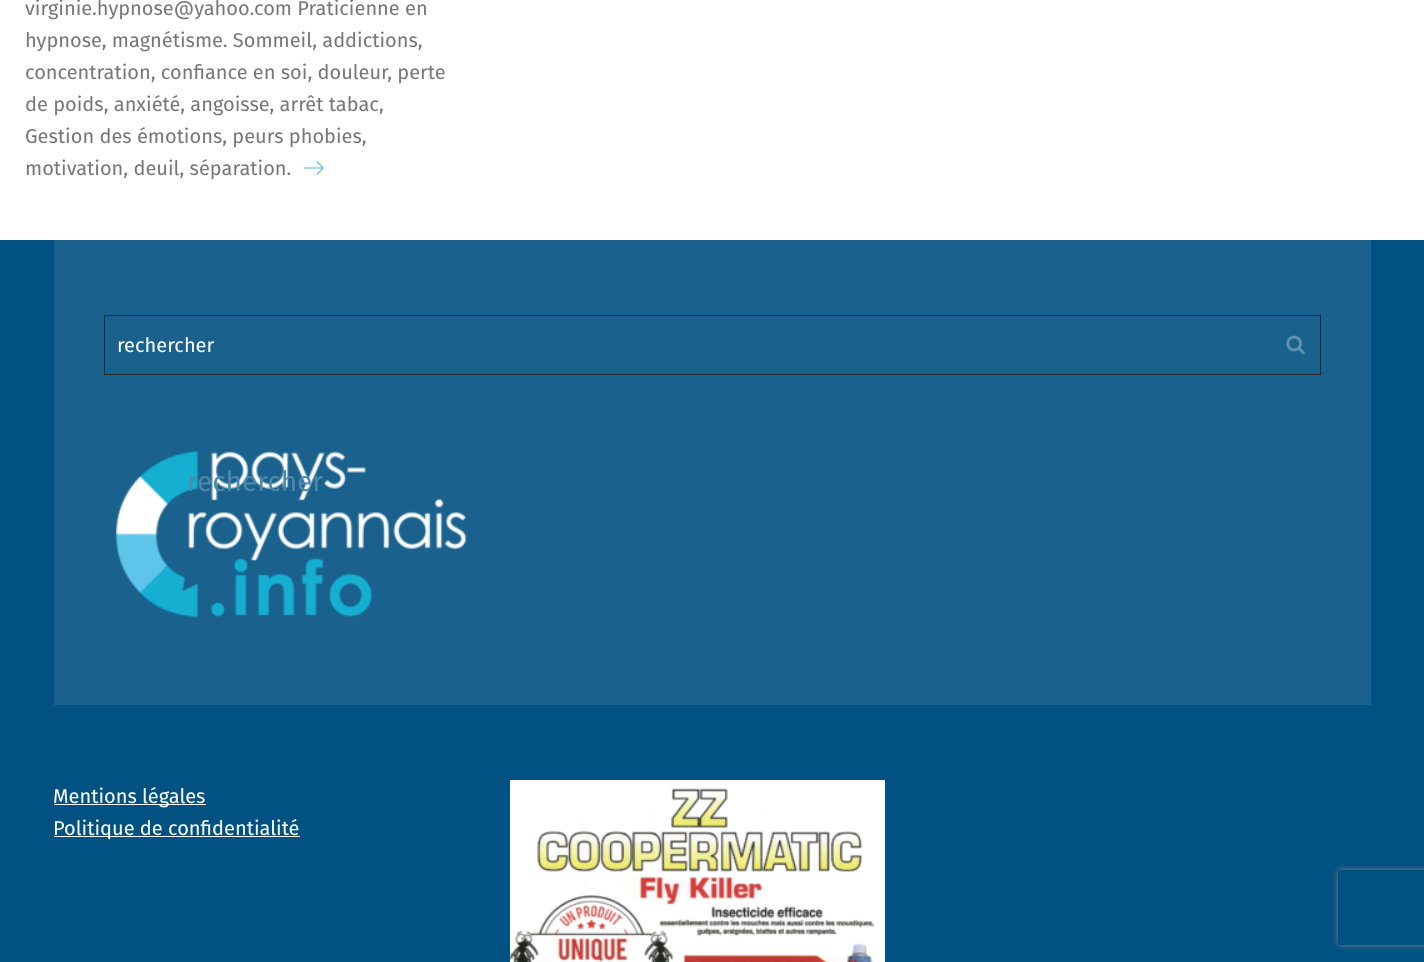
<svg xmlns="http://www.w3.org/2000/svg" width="1424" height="962">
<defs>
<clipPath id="clip1"><path d="M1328 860h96v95h-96zm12.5 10h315c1.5 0 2.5 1 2.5 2.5v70c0 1.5-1 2.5-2.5 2.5h-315c-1.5 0-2.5-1-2.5-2.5v-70c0-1.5 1-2.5 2.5-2.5z" clip-rule="evenodd"/></clipPath>
</defs>
<rect width="100%" height="100%" fill="#fff"/>
<text x="25" y="15" style="font-family:Fira Sans;font-size:20px;fill:#777">virginie.hypnose@yahoo.com Praticienne en</text>
<text x="25" y="47" style="font-family:Fira Sans;font-size:20px;fill:#777">hypnose, magnétisme. Sommeil, addictions,</text>
<text x="25" y="79" style="font-family:Fira Sans;font-size:20px;fill:#777">concentration, confiance en soi, douleur, perte</text>
<text x="25" y="111" style="font-family:Fira Sans;font-size:20px;fill:#777">de poids, anxiété, angoisse, arrêt tabac,</text>
<text x="25" y="143" style="font-family:Fira Sans;font-size:20px;fill:#777">Gestion des émotions, peurs phobies,</text>
<text x="25" y="175" style="font-family:Fira Sans;font-size:20px;fill:#777">motivation, deuil, séparation.</text>
<image x="303" y="161" width="21" height="14" href="media/1.png"/>
<rect y="240" width="1424" height="722" fill="#015182"/>
<rect x="54" y="240" width="1317" height="465" fill="#1a628d"/>
<rect x="104.5" y="315.5" width="1216" height="59" fill="none" stroke="#282828"/>
<text x="117" y="352" style="font-family:Fira Sans;font-size:20px;fill:#fff">rechercher</text>
<image x="1286" y="335" width="19" height="20" href="media/2.png"/>
<image x="115" y="451" width="352" height="167" href="media/3.png"/>
<rect x="54" y="804" width="152" height="1" fill="#fff"/>
<text x="53" y="803" style="font-family:Fira Sans;font-size:20px;fill:#fff">Mentions légales</text>
<rect x="54" y="836" width="246" height="1" fill="#fff"/>
<text x="53" y="835" style="font-family:Fira Sans;font-size:20px;fill:#fff">Politique de confidentialité</text>
<image x="510" y="780" width="375" height="182" href="media/4.png"/>
<text x="187" y="491" style="font-family:Fira Sans;font-size:28px;fill:#4c89aa">rechercher</text>
<g clip-path="url(#clip1)">
<rect x="1338" y="870" width="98" height="75" rx="2.5" fill="#808080" filter="blur(3px)"/>
</g>
</svg>
